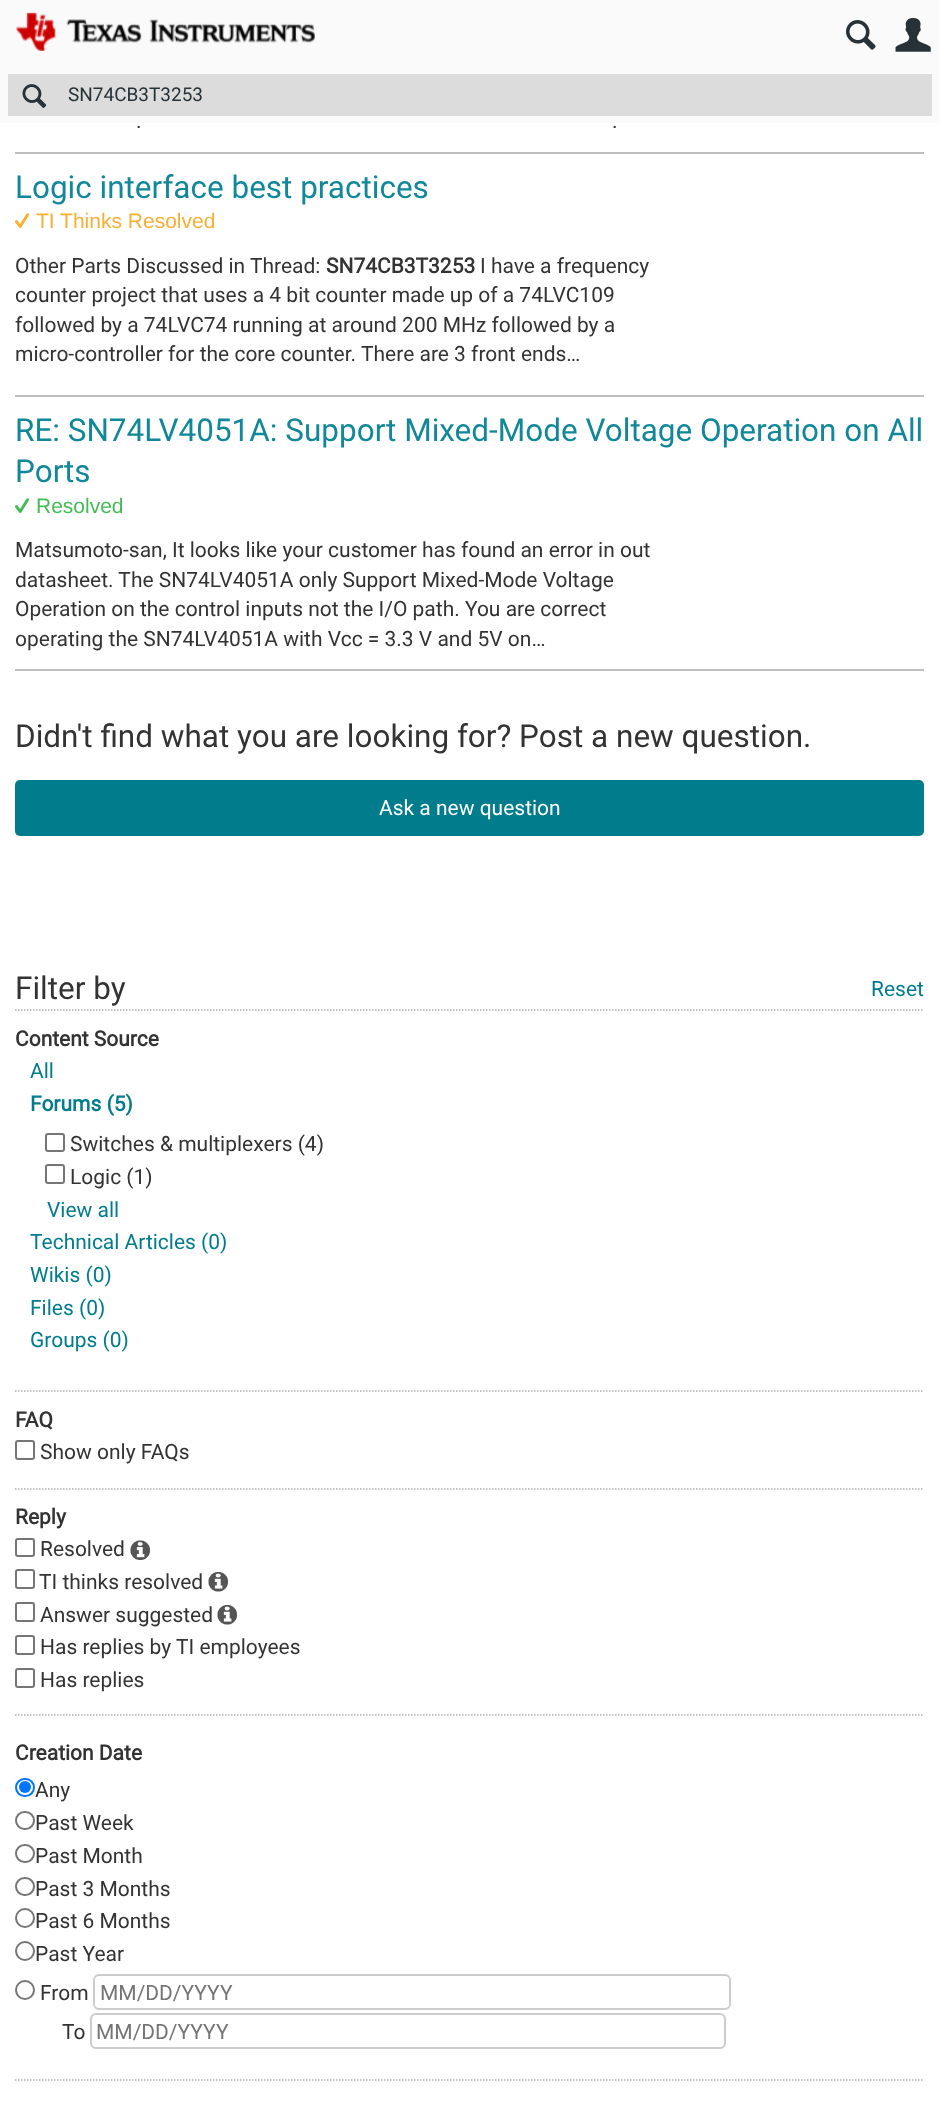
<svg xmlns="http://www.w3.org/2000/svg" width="939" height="2120">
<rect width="100%" height="100%" fill="#fff"/>
<rect width="939" height="123" fill="#fafafa"/>
<image x="16" y="12" width="299" height="39" href="media/1.png"/>
<image x="846" y="20" width="30" height="30" href="media/2.png"/>
<image x="895" y="18" width="36" height="34" href="media/3.png"/>
<rect x="8" y="74" width="924" height="42" fill="#dcdcdc"/>
<image x="22" y="84" width="25" height="24" href="media/4.png"/>
<text x="68" y="101" style="font-family:Roboto;font-size:19px;fill:#263238">SN74CB3T3253</text>
<rect x="15" y="152" width="909" height="2" fill="#bfbfbf"/>
<text x="136" y="128" style="font-family:Roboto;font-size:21px;fill:#333">.</text>
<text x="612" y="128" style="font-family:Roboto;font-size:21px;fill:#333">.</text>
<rect x="15" y="395" width="909" height="2" fill="#bfbfbf"/>
<text x="15" y="198" style="font-family:Roboto;font-size:31.5px;fill:#189">Logic interface best practices</text>
<image x="15" y="213" width="14" height="15" href="media/5.png"/>
<text x="36" y="228" style="font-family:Liberation Sans;font-size:21px;fill:#f8af34">TI Thinks Resolved</text>
<text x="15" y="273" style="font-family:Roboto;font-size:21px;fill:#333">Other Parts Discussed in Thread:</text>
<text x="326" y="273" style="font-family:Roboto;font-size:21px;font-weight:bold;fill:#333">SN74CB3T3253</text>
<text x="480" y="273" style="font-family:Roboto;font-size:21px;fill:#333">I have a frequency</text>
<text x="15" y="302" style="font-family:Roboto;font-size:21px;fill:#333">counter project that uses a 4 bit counter made up of a 74LVC109</text>
<text x="15" y="332" style="font-family:Roboto;font-size:21px;fill:#333">followed by a 74LVC74 running at around 200 MHz followed by a</text>
<text x="15" y="361" style="font-family:Roboto;font-size:21px;fill:#333">micro-controller for the core counter.</text>
<text x="361" y="361" style="font-family:Roboto;font-size:21px;fill:#333">There are 3 front ends…</text>
<rect x="15" y="669" width="909" height="2" fill="#bfbfbf"/>
<text x="15" y="441" style="font-family:Roboto;font-size:31.5px;fill:#189">RE: SN74LV4051A: Support Mixed-Mode Voltage Operation on All</text>
<text x="15" y="482" style="font-family:Roboto;font-size:31.5px;fill:#189">Ports</text>
<image x="15" y="498" width="14" height="15" href="media/6.png"/>
<text x="36" y="513" style="font-family:Liberation Sans;font-size:21px;fill:#4b5">Resolved</text>
<text x="15" y="557" style="font-family:Roboto;font-size:21px;fill:#333">Matsumoto-san, It looks like your customer has found an error in out</text>
<text x="15" y="587" style="font-family:Roboto;font-size:21px;fill:#333">datasheet. The SN74LV4051A only Support Mixed-Mode Voltage</text>
<text x="15" y="616" style="font-family:Roboto;font-size:21px;fill:#333">Operation on the control inputs not the I/O path. You are correct</text>
<text x="15" y="646" style="font-family:Roboto;font-size:21px;fill:#333">operating the SN74LV4051A with Vcc = 3.3 V and 5V on…</text>
<text x="15" y="747" style="font-family:Roboto;font-size:31.5px;fill:#333">Didn't find what you are looking for? Post a new question.</text>
<rect x="15" y="780" width="909" height="56" rx="5" fill="#007c8c"/>
<text x="379" y="815" style="font-family:Roboto;font-size:21px;fill:#fff">Ask a new question</text>
<text x="15" y="999" style="font-family:Roboto;font-size:31.5px;fill:#333">Filter by</text>
<text x="871" y="996" style="font-family:Roboto;font-size:21px;fill:#007c8c">Reset</text>
<path d="M15 1010h909" fill="none" stroke="#b0b0b0" stroke-width="1.5" stroke-dasharray="1.5 1.5"/>
<text x="15" y="1046" style="font-family:Roboto;font-size:21px;font-weight:bold;fill:#333">Content Source</text>
<text x="30" y="1078" style="font-family:Roboto;font-size:21px;fill:#007c8c">All</text>
<text x="30" y="1111" style="font-family:Roboto;font-size:21px;font-weight:bold;fill:#007c8c">Forums (5)</text>
<rect x="46" y="1134" width="18" height="17" rx="2" fill="none" stroke="#767676" stroke-width="2"/>
<text x="70" y="1151" style="font-family:Roboto;font-size:21px;fill:#333">Switches &amp; multiplexers (4)</text>
<rect x="46" y="1165" width="18" height="18" rx="2" fill="none" stroke="#767676" stroke-width="2"/>
<text x="70" y="1184" style="font-family:Roboto;font-size:21px;fill:#333">Logic (1)</text>
<text x="47" y="1217" style="font-family:Roboto;font-size:21px;fill:#007c8c">View all</text>
<text x="30" y="1249" style="font-family:Roboto;font-size:21px;fill:#007c8c">Technical Articles (0)</text>
<text x="30" y="1282" style="font-family:Roboto;font-size:21px;fill:#007c8c">Wikis (0)</text>
<text x="30" y="1315" style="font-family:Roboto;font-size:21px;fill:#007c8c">Files (0)</text>
<text x="30" y="1347" style="font-family:Roboto;font-size:21px;fill:#007c8c">Groups (0)</text>
<path d="M15 1391h909" fill="none" stroke="#b0b0b0" stroke-width="1.5" stroke-dasharray="1.5 1.5"/>
<text x="15" y="1427" style="font-family:Roboto;font-size:21px;font-weight:bold;fill:#333">FAQ</text>
<path d="M15 1489h909" fill="none" stroke="#b0b0b0" stroke-width="1.5" stroke-dasharray="1.5 1.5"/>
<rect x="16" y="1441" width="18" height="18" rx="2" fill="none" stroke="#767676" stroke-width="2"/>
<text x="40" y="1459" style="font-family:Roboto;font-size:21px;fill:#333">Show only FAQs</text>
<text x="15" y="1524" style="font-family:Roboto;font-size:21px;font-weight:bold;fill:#333">Reply</text>
<path d="M15 1715h909" fill="none" stroke="#b0b0b0" stroke-width="1.5" stroke-dasharray="1.5 1.5"/>
<rect x="16" y="1539" width="18" height="17" rx="2" fill="none" stroke="#767676" stroke-width="2"/>
<text x="40" y="1556" style="font-family:Roboto;font-size:21px;fill:#333">Resolved</text>
<image x="130" y="1540" width="20" height="20" href="media/7.png"/>
<rect x="16" y="1570" width="18" height="18" rx="2" fill="none" stroke="#767676" stroke-width="2"/>
<text x="39" y="1589" style="font-family:Roboto;font-size:21px;fill:#333">TI thinks resolved</text>
<image x="208" y="1572" width="20" height="20" href="media/8.png"/>
<rect x="16" y="1603" width="18" height="18" rx="2" fill="none" stroke="#767676" stroke-width="2"/>
<text x="40" y="1622" style="font-family:Roboto;font-size:21px;fill:#333">Answer suggested</text>
<image x="217" y="1605" width="20" height="20" href="media/8.png"/>
<rect x="16" y="1636" width="18" height="18" rx="2" fill="none" stroke="#767676" stroke-width="2"/>
<text x="40" y="1654" style="font-family:Roboto;font-size:21px;fill:#333">Has replies by TI employees</text>
<rect x="16" y="1669" width="18" height="18" rx="2" fill="none" stroke="#767676" stroke-width="2"/>
<text x="40" y="1687" style="font-family:Roboto;font-size:21px;fill:#333">Has replies</text>
<text x="15" y="1760" style="font-family:Roboto;font-size:21px;font-weight:bold;fill:#333">Creation Date</text>
<rect x="16" y="1779" width="18" height="17" rx="8.5" fill="none" stroke="#0075ff" stroke-width="2"/>
<circle cx="25" cy="1787" r="6" fill="#0075ff"/>
<text x="35" y="1797" style="font-family:Roboto;font-size:21px;fill:#333">Any</text>
<rect x="16" y="1812" width="18" height="17" rx="8.5" fill="none" stroke="#767676" stroke-width="2"/>
<text x="35" y="1830" style="font-family:Roboto;font-size:21px;fill:#333">Past Week</text>
<rect x="16" y="1845" width="18" height="17" rx="8.5" fill="none" stroke="#767676" stroke-width="2"/>
<text x="35" y="1863" style="font-family:Roboto;font-size:21px;fill:#333">Past Month</text>
<rect x="16" y="1878" width="18" height="17" rx="8.5" fill="none" stroke="#767676" stroke-width="2"/>
<text x="35" y="1896" style="font-family:Roboto;font-size:21px;fill:#333">Past 3 Months</text>
<circle cx="25" cy="1918" r="9" fill="none" stroke="#767676" stroke-width="2"/>
<text x="35" y="1928" style="font-family:Roboto;font-size:21px;fill:#333">Past 6 Months</text>
<circle cx="25" cy="1951" r="9" fill="none" stroke="#767676" stroke-width="2"/>
<text x="35" y="1961" style="font-family:Roboto;font-size:21px;fill:#333">Past Year</text>
<circle cx="25" cy="1990" r="9" fill="none" stroke="#767676" stroke-width="2"/>
<text x="40" y="2000" style="font-family:Roboto;font-size:21px;fill:#333">From</text>
<rect x="94" y="1975" width="636" height="34" rx="5" fill="none" stroke="#ccc" stroke-width="2"/>
<text x="100" y="2000" style="font-family:Roboto;font-size:21px;fill:#757575">MM/DD/YYYY</text>
<text x="62" y="2039" style="font-family:Roboto;font-size:21px;fill:#333">To</text>
<rect x="91" y="2014" width="634" height="34" rx="5" fill="none" stroke="#ccc" stroke-width="2"/>
<text x="96" y="2039" style="font-family:Roboto;font-size:21px;fill:#757575">MM/DD/YYYY</text>
<path d="M15 2080h909" fill="none" stroke="#b0b0b0" stroke-width="1.5" stroke-dasharray="1.5 1.5"/>
</svg>
